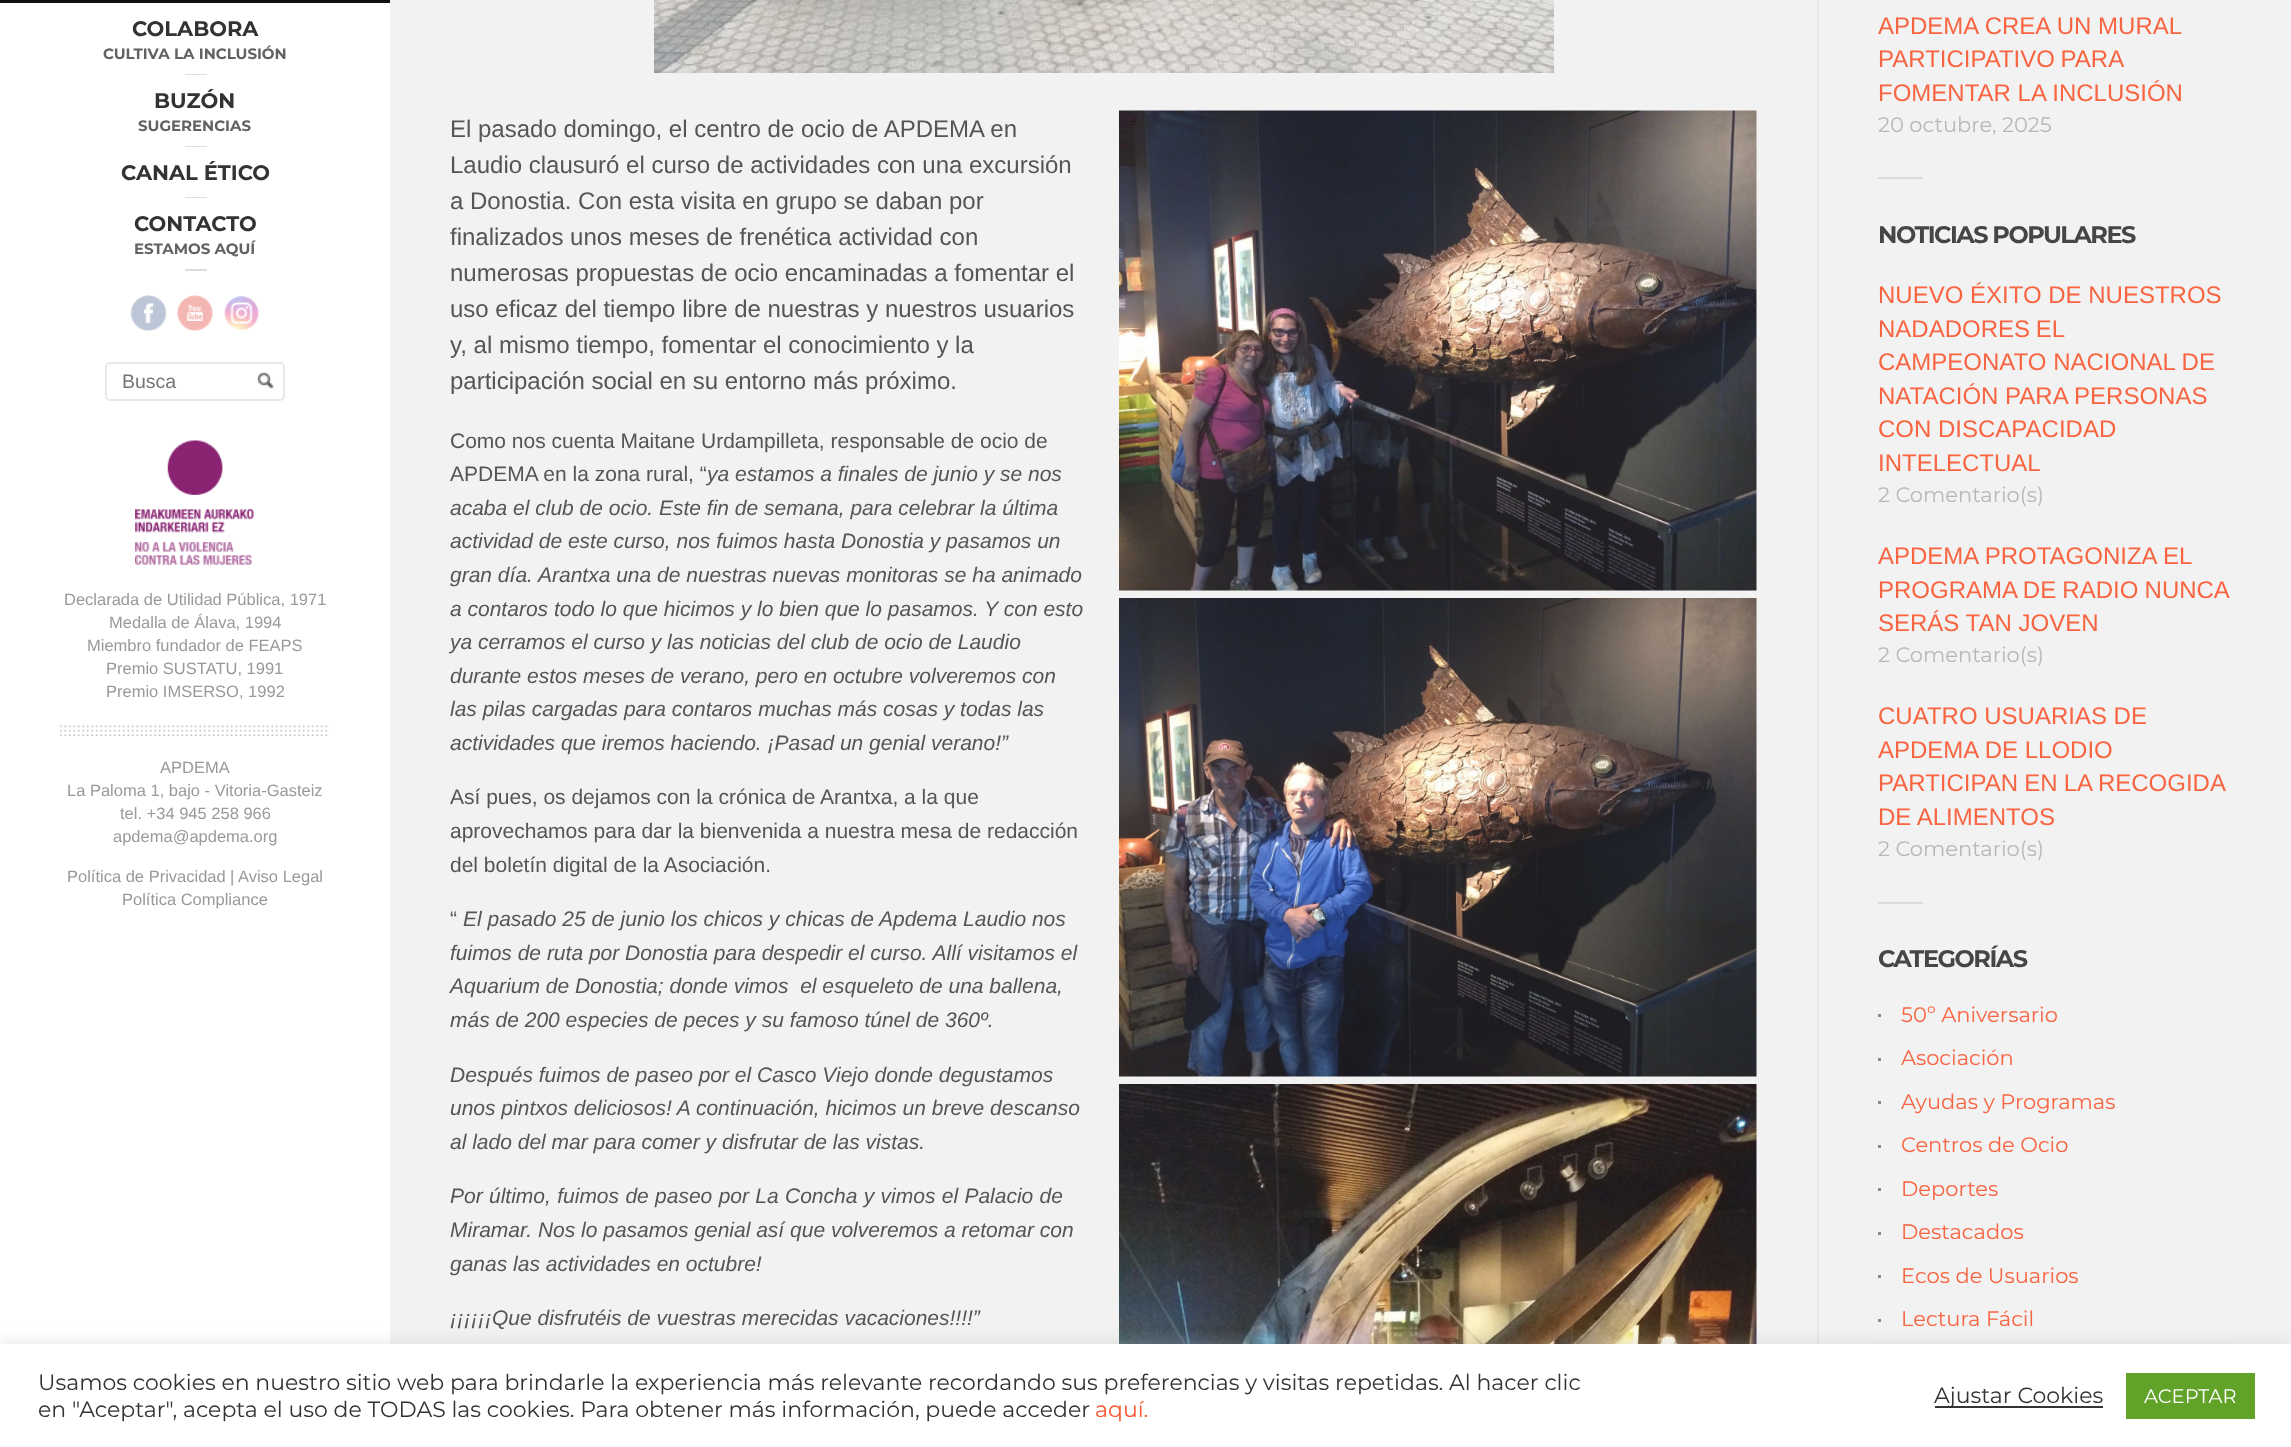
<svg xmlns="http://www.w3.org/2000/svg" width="2291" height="1447">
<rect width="100%" height="100%" fill="#fff"/>
<rect width="390" height="3" fill="#0f0f0f"/>
<text x="132" y="36" style="font-family:Montserrat;font-size:21px;font-weight:bold;fill:#333">COLABORA</text>
<text x="103" y="59" style="font-family:Montserrat;font-size:15px;font-weight:bold;fill:#626262">CULTIVA LA INCLUSIÓN</text>
<rect x="185" y="74" width="22" height="1" fill="#ddd"/>
<text x="154" y="108" style="font-family:Montserrat;font-size:21px;font-weight:bold;fill:#333">BUZÓN</text>
<text x="138" y="131" style="font-family:Montserrat;font-size:15px;font-weight:bold;fill:#626262">SUGERENCIAS</text>
<rect x="185" y="146" width="22" height="1" fill="#ddd"/>
<text x="121" y="180" style="font-family:Montserrat;font-size:21px;font-weight:bold;fill:#333">CANAL ÉTICO</text>
<rect x="185" y="197" width="22" height="1" fill="#ddd"/>
<text x="134" y="231" style="font-family:Montserrat;font-size:21px;font-weight:bold;fill:#333">CONTACTO</text>
<text x="134" y="254" style="font-family:Montserrat;font-size:15px;font-weight:bold;fill:#626262">ESTAMOS AQUÍ</text>
<rect x="185" y="269" width="22" height="2" fill="#ddd"/>
<image x="130" y="295" width="37" height="36" href="media/1.png"/>
<image x="177" y="295" width="36" height="36" href="media/2.png"/>
<image x="224" y="296" width="35" height="34" href="media/3.png"/>
<rect x="106" y="363" width="178" height="37" rx="4" fill="none" stroke="#e8e8e8" stroke-width="2"/>
<text x="122" y="388" style="font-family:Liberation Sans;font-size:19.5px;fill:#757575">Busca</text>
<image x="257" y="372" width="17" height="17" href="media/4.png"/>
<image x="135" y="440" width="119" height="125" href="media/5.png"/>
<text x="64" y="605" style="font-family:Liberation Sans;font-size:16.5px;fill:#999">Declarada de Utilidad Pública, 1971</text>
<text x="109" y="628" style="font-family:Liberation Sans;font-size:16.5px;fill:#999">Medalla de Álava, 1994</text>
<text x="87" y="651" style="font-family:Liberation Sans;font-size:16.5px;fill:#999">Miembro fundador de FEAPS</text>
<text x="106" y="674" style="font-family:Liberation Sans;font-size:16.5px;fill:#999">Premio SUSTATU, 1991</text>
<text x="106" y="697" style="font-family:Liberation Sans;font-size:16.5px;fill:#999">Premio IMSERSO, 1992</text>
<image x="60" y="725" width="270" height="11" href="media/6.png"/>
<text x="160" y="773" style="font-family:Liberation Sans;font-size:16.5px;fill:#999">APDEMA</text>
<text x="67" y="796" style="font-family:Liberation Sans;font-size:16.5px;fill:#999">La Paloma 1, bajo - Vitoria-Gasteiz</text>
<text x="120" y="819" style="font-family:Liberation Sans;font-size:16.5px;fill:#999">tel. +34 945 258 966</text>
<text x="113" y="842" style="font-family:Liberation Sans;font-size:16.5px;fill:#999">apdema@apdema.org</text>
<text x="67" y="882" style="font-family:Liberation Sans;font-size:16.5px;fill:#999">Política de Privacidad</text>
<text x="230" y="882" style="font-family:Liberation Sans;font-size:16.5px;fill:#999">|</text>
<text x="238" y="882" style="font-family:Liberation Sans;font-size:16.5px;fill:#999">Aviso Legal</text>
<text x="122" y="905" style="font-family:Liberation Sans;font-size:16.5px;fill:#999">Política Compliance</text>
<rect x="390" width="1901" height="1344" fill="#f2f2f2"/>
<image x="654" y="0" width="900" height="73" href="media/7.png"/>
<text x="450" y="137" style="font-family:Liberation Sans;font-size:24px;fill:#555">El pasado domingo, el centro de ocio de APDEMA en</text>
<text x="450" y="173" style="font-family:Liberation Sans;font-size:24px;fill:#555">Laudio clausuró el curso de actividades con una excursión</text>
<text x="450" y="209" style="font-family:Liberation Sans;font-size:24px;fill:#555">a Donostia. Con esta visita en grupo se daban por</text>
<text x="450" y="245" style="font-family:Liberation Sans;font-size:24px;fill:#555">finalizados unos meses de frenética actividad con</text>
<text x="450" y="281" style="font-family:Liberation Sans;font-size:24px;fill:#555">numerosas propuestas de ocio encaminadas a fomentar el</text>
<text x="450" y="317" style="font-family:Liberation Sans;font-size:24px;fill:#555">uso eficaz del tiempo libre de nuestras y nuestros usuarios</text>
<text x="450" y="353" style="font-family:Liberation Sans;font-size:24px;fill:#555">y, al mismo tiempo, fomentar el conocimiento y la</text>
<text x="450" y="389" style="font-family:Liberation Sans;font-size:24px;fill:#555">participación social en su entorno más próximo.</text>
<image x="1119" y="110" width="638" height="481" href="media/8.png"/>
<image x="1119" y="598" width="638" height="479" href="media/9.png"/>
<image x="1119" y="1084" width="638" height="260" href="media/10.png"/>
<text x="450" y="448" style="font-family:Liberation Sans;font-size:21px;fill:#555">Como nos cuenta Maitane Urdampilleta, responsable de ocio de</text>
<text x="450" y="481" style="font-family:Liberation Sans;font-size:21px;fill:#555">APDEMA en la zona rural, “</text>
<text x="707" y="481" style="font-family:Liberation Sans;font-size:21px;font-style:italic;fill:#555">ya estamos a finales de junio y se nos</text>
<text x="450" y="515" style="font-family:Liberation Sans;font-size:21px;font-style:italic;fill:#555">acaba el club de ocio. Este fin de semana, para celebrar la última</text>
<text x="450" y="548" style="font-family:Liberation Sans;font-size:21px;font-style:italic;fill:#555">actividad de este curso, nos fuimos hasta Donostia y pasamos un</text>
<text x="450" y="582" style="font-family:Liberation Sans;font-size:21px;font-style:italic;fill:#555">gran día. Arantxa una de nuestras nuevas monitoras se ha animado</text>
<text x="450" y="616" style="font-family:Liberation Sans;font-size:21px;font-style:italic;fill:#555">a contaros todo lo que hicimos y lo bien que lo pasamos. Y con esto</text>
<text x="450" y="649" style="font-family:Liberation Sans;font-size:21px;font-style:italic;fill:#555">ya cerramos el curso y las noticias del club de ocio de Laudio</text>
<text x="450" y="683" style="font-family:Liberation Sans;font-size:21px;font-style:italic;fill:#555">durante estos meses de verano, pero en octubre volveremos con</text>
<text x="450" y="716" style="font-family:Liberation Sans;font-size:21px;font-style:italic;fill:#555">las pilas cargadas para contaros muchas más cosas y todas las</text>
<text x="450" y="750" style="font-family:Liberation Sans;font-size:21px;font-style:italic;fill:#555">actividades que iremos haciendo. ¡Pasad un genial verano!”</text>
<text x="450" y="804" style="font-family:Liberation Sans;font-size:21px;fill:#555">Así pues, os dejamos con la crónica de Arantxa, a la que</text>
<text x="450" y="838" style="font-family:Liberation Sans;font-size:21px;fill:#555">aprovechamos para dar la bienvenida a nuestra mesa de redacción</text>
<text x="450" y="872" style="font-family:Liberation Sans;font-size:21px;fill:#555">del boletín digital de la Asociación.</text>
<text x="450" y="926" style="font-family:Liberation Sans;font-size:21px;fill:#555">“</text>
<text x="463" y="926" style="font-family:Liberation Sans;font-size:21px;font-style:italic;fill:#555">El pasado 25 de junio los chicos y chicas de Apdema Laudio nos</text>
<text x="450" y="960" style="font-family:Liberation Sans;font-size:21px;font-style:italic;fill:#555">fuimos de ruta por Donostia para despedir el curso. Allí visitamos el</text>
<text x="450" y="993" style="font-family:Liberation Sans;font-size:21px;font-style:italic;fill:#555" xml:space="preserve">Aquarium de Donostia; donde vimos  el esqueleto de una ballena,</text>
<text x="450" y="1027" style="font-family:Liberation Sans;font-size:21px;font-style:italic;fill:#555">más de 200 especies de peces y su famoso túnel de 360º.</text>
<text x="450" y="1082" style="font-family:Liberation Sans;font-size:21px;font-style:italic;fill:#555">Después fuimos de paseo por el Casco Viejo donde degustamos</text>
<text x="450" y="1115" style="font-family:Liberation Sans;font-size:21px;font-style:italic;fill:#555">unos pintxos deliciosos! A continuación, hicimos un breve descanso</text>
<text x="450" y="1149" style="font-family:Liberation Sans;font-size:21px;font-style:italic;fill:#555">al lado del mar para comer y disfrutar de las vistas.</text>
<text x="450" y="1203" word-spacing="0.5" style="font-family:Liberation Sans;font-size:21px;font-style:italic;fill:#555">Por último, fuimos de paseo por La Concha y vimos el Palacio de</text>
<text x="450" y="1237" style="font-family:Liberation Sans;font-size:21px;font-style:italic;fill:#555">Miramar. Nos lo pasamos genial así que volveremos a retomar con</text>
<text x="450" y="1271" style="font-family:Liberation Sans;font-size:21px;font-style:italic;fill:#555">ganas las actividades en octubre!</text>
<text x="450" y="1325" style="font-family:Liberation Sans;font-size:21px;font-style:italic;fill:#555">¡¡¡¡¡¡Que disfrutéis de vuestras merecidas vacaciones!!!!”</text>
<rect x="1817" width="2" height="1344" fill="#e7e7e7"/>
<text x="1878" y="34" style="font-family:Liberation Sans;font-size:24px;fill:#f96441">APDEMA CREA UN MURAL</text>
<text x="1878" y="67" word-spacing="-1" style="font-family:Liberation Sans;font-size:24px;fill:#f96441">PARTICIPATIVO PARA</text>
<text x="1878" y="101" style="font-family:Liberation Sans;font-size:24px;fill:#f96441">FOMENTAR LA INCLUSIÓN</text>
<text x="1878" y="132" style="font-family:Montserrat;font-size:21px;fill:#b8b8b8">20 octubre, 2025</text>
<rect x="1878" y="177" width="45" height="2" fill="#dcdcdc"/>
<text x="1878" y="243" style="font-family:Montserrat;font-size:24px;font-weight:bold;letter-spacing:-1.5px;fill:#464646">NOTICIAS POPULARES</text>
<text x="1878" y="303" style="font-family:Liberation Sans;font-size:24px;fill:#f96441">NUEVO ÉXITO DE NUESTROS</text>
<text x="1878" y="337" word-spacing="-1" style="font-family:Liberation Sans;font-size:24px;fill:#f96441">NADADORES EL</text>
<text x="1878" y="370" style="font-family:Liberation Sans;font-size:24px;fill:#f96441">CAMPEONATO NACIONAL DE</text>
<text x="1878" y="404" style="font-family:Liberation Sans;font-size:24px;fill:#f96441">NATACIÓN PARA PERSONAS</text>
<text x="1878" y="437" style="font-family:Liberation Sans;font-size:24px;fill:#f96441">CON DISCAPACIDAD</text>
<text x="1878" y="471" style="font-family:Liberation Sans;font-size:24px;fill:#f96441">INTELECTUAL</text>
<text x="1878" y="502" style="font-family:Montserrat;font-size:21px;fill:#b8b8b8">2 Comentario(s)</text>
<text x="1878" y="564" style="font-family:Liberation Sans;font-size:24px;fill:#f96441">APDEMA PROTAGONIZA EL</text>
<text x="1878" y="598" word-spacing="-0.5" style="font-family:Liberation Sans;font-size:24px;fill:#f96441">PROGRAMA DE RADIO NUNCA</text>
<text x="1878" y="631" style="font-family:Liberation Sans;font-size:24px;fill:#f96441">SERÁS TAN JOVEN</text>
<text x="1878" y="662" style="font-family:Montserrat;font-size:21px;fill:#b8b8b8">2 Comentario(s)</text>
<text x="1878" y="724" style="font-family:Liberation Sans;font-size:24px;fill:#f96441">CUATRO USUARIAS DE</text>
<text x="1878" y="758" style="font-family:Liberation Sans;font-size:24px;fill:#f96441">APDEMA DE LLODIO</text>
<text x="1878" y="791" word-spacing="-0.5" style="font-family:Liberation Sans;font-size:24px;fill:#f96441">PARTICIPAN EN LA RECOGIDA</text>
<text x="1878" y="825" style="font-family:Liberation Sans;font-size:24px;fill:#f96441">DE ALIMENTOS</text>
<text x="1878" y="856" style="font-family:Montserrat;font-size:21px;fill:#b8b8b8">2 Comentario(s)</text>
<rect x="1878" y="902" width="45" height="2" fill="#dcdcdc"/>
<text x="1878" y="967" style="font-family:Montserrat;font-size:24px;font-weight:bold;letter-spacing:-1.5px;fill:#464646">CATEGORÍAS</text>
<rect x="1878" y="1014" width="3" height="3" fill="#8b8b8b"/>
<text x="1901" y="1022" style="font-family:Montserrat;font-size:21px;fill:#f96441">50º Aniversario</text>
<path d="M1878 1037h354" fill="none" stroke="#ededed" stroke-width="1.5" stroke-dasharray="1.5 1.5"/>
<rect x="1878" y="1058" width="3" height="3" fill="#8b8b8b"/>
<text x="1901" y="1065" style="font-family:Montserrat;font-size:21px;fill:#f96441">Asociación</text>
<path d="M1878 1081h354" fill="none" stroke="#ededed" stroke-width="1.5" stroke-dasharray="1.5 1.5"/>
<rect x="1878" y="1101" width="3" height="3" fill="#8b8b8b"/>
<text x="1901" y="1109" style="font-family:Montserrat;font-size:21px;fill:#f96441">Ayudas y Programas</text>
<path d="M1878 1124h354" fill="none" stroke="#ededed" stroke-width="1.5" stroke-dasharray="1.5 1.5"/>
<rect x="1878" y="1145" width="3" height="3" fill="#8b8b8b"/>
<text x="1901" y="1152" style="font-family:Montserrat;font-size:21px;fill:#f96441">Centros de Ocio</text>
<path d="M1878 1168h354" fill="none" stroke="#ededed" stroke-width="1.5" stroke-dasharray="1.5 1.5"/>
<rect x="1878" y="1188" width="3" height="3" fill="#8b8b8b"/>
<text x="1901" y="1196" style="font-family:Montserrat;font-size:21px;fill:#f96441">Deportes</text>
<path d="M1878 1211h354" fill="none" stroke="#ededed" stroke-width="1.5" stroke-dasharray="1.5 1.5"/>
<rect x="1878" y="1232" width="3" height="3" fill="#8b8b8b"/>
<text x="1901" y="1239" style="font-family:Montserrat;font-size:21px;fill:#f96441">Destacados</text>
<path d="M1878 1255h354" fill="none" stroke="#ededed" stroke-width="1.5" stroke-dasharray="1.5 1.5"/>
<rect x="1878" y="1275" width="3" height="3" fill="#8b8b8b"/>
<text x="1901" y="1283" style="font-family:Montserrat;font-size:21px;fill:#f96441">Ecos de Usuarios</text>
<path d="M1878 1298h354" fill="none" stroke="#ededed" stroke-width="1.5" stroke-dasharray="1.5 1.5"/>
<rect x="1878" y="1319" width="3" height="3" fill="#8b8b8b"/>
<text x="1901" y="1326" style="font-family:Montserrat;font-size:21px;fill:#f96441">Lectura Fácil</text>
<path d="M1878 1342h354" fill="none" stroke="#ededed" stroke-width="1.5" stroke-dasharray="1.5 1.5"/>
<rect y="1343" width="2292" height="103" fill="#acabab4d" filter="blur(7.5px)"/>
<rect y="1344" width="2291" height="103" fill="#fff"/>
<text x="38" y="1390" style="font-family:Montserrat;font-size:22px;fill:#333">Usamos cookies en nuestro sitio web para brindarle la experiencia más relevante recordando sus preferencias y visitas repetidas. Al hacer clic</text>
<text x="38" y="1417" style="font-family:Montserrat;font-size:22px;fill:#333">en "Aceptar", acepta el uso de TODAS las cookies. Para obtener más información, puede acceder</text>
<text x="1095" y="1417" style="font-family:Montserrat;font-size:22px;fill:#fa542d">aquí.</text>
<rect x="1935" y="1406" width="168" height="2" fill="#333"/>
<text x="1934" y="1403" style="font-family:Montserrat;font-size:22px;fill:#333">Ajustar Cookies</text>
<rect x="2126" y="1373" width="129" height="46" fill="#61a229"/>
<text x="2144" y="1403" style="font-family:Montserrat;font-size:19.5px;fill:#fff">ACEPTAR</text>
</svg>
